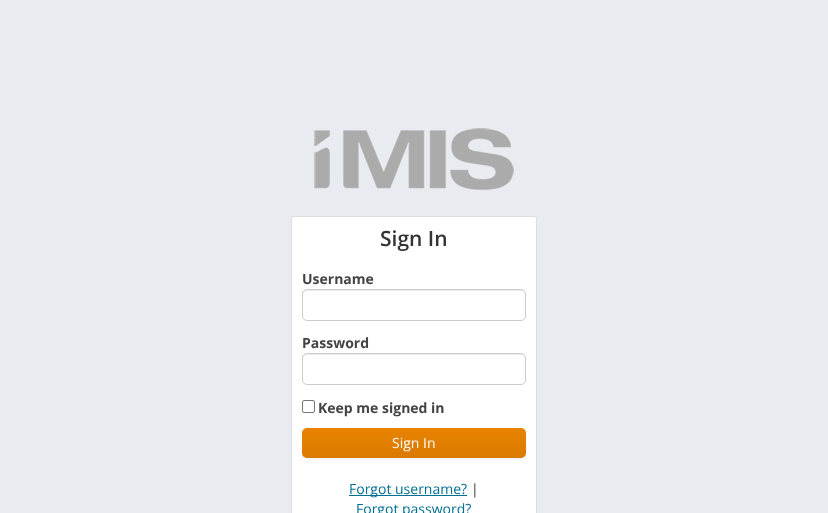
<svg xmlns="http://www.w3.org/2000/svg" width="828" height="513">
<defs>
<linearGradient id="g1" gradientUnits="userSpaceOnUse" x1="414" y1="428" x2="414" y2="458"><stop offset="0" stop-color="#e98300"/><stop offset="1" stop-color="#da7a00"/></linearGradient>
</defs>
<rect width="100%" height="100%" fill="#e8ebf0"/>
<image x="314" y="128" width="200" height="62" href="media/1.png"/>
<rect x="291.5" y="216.5" width="245" height="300" rx="2.5" fill="#fff" stroke="#ddd"/>
<text x="380" y="246" style="font-family:Open Sans;font-size:21px;font-weight:600;fill:#333">Sign In</text>
<text x="302" y="284" style="font-family:Open Sans;font-size:14px;font-weight:bold;fill:#444">Username</text>
<path d="M307 291h214c2 0 4 2 4 4c0-3-1-5-4-5h-214c-3 0-4 2-4 5c0-2 2-4 4-4z" fill="#ececec"/>
<rect x="302.5" y="289.5" width="223" height="31" rx="4.5" fill="none" stroke="#ccc"/>
<text x="302" y="348" style="font-family:Open Sans;font-size:14px;font-weight:bold;fill:#444">Password</text>
<path d="M307 355h214c2 0 4 2 4 4c0-3-1-5-4-5h-214c-3 0-4 2-4 5c0-2 2-4 4-4z" fill="#ececec"/>
<rect x="302.5" y="353.5" width="223" height="31" rx="4.5" fill="none" stroke="#ccc"/>
<rect x="302.5" y="400.5" width="12" height="12" rx="1.5" fill="none" stroke="#767676"/>
<text x="318" y="413" style="font-family:Open Sans;font-size:14px;font-weight:bold;fill:#444">Keep me signed in</text>
<rect x="302" y="430" width="224" height="30" rx="5" fill="#0000000d" filter="blur(1.5px)"/>
<rect x="302" y="428" width="224" height="30" rx="5" fill="url(#g1)"/>
<text x="392" y="448" style="font-family:Open Sans;font-size:14px;fill:#fff">Sign In</text>
<rect x="349" y="495" width="118" height="1" fill="#006f94"/>
<text x="349" y="494" style="font-family:Open Sans;font-size:14px;fill:#006f94">Forgot username?</text>
<text x="471" y="494" style="font-family:Open Sans;font-size:14px;fill:#333">|</text>
<text x="356" y="514" style="font-family:Open Sans;font-size:14px;fill:#006f94">Forgot password?</text>
</svg>
